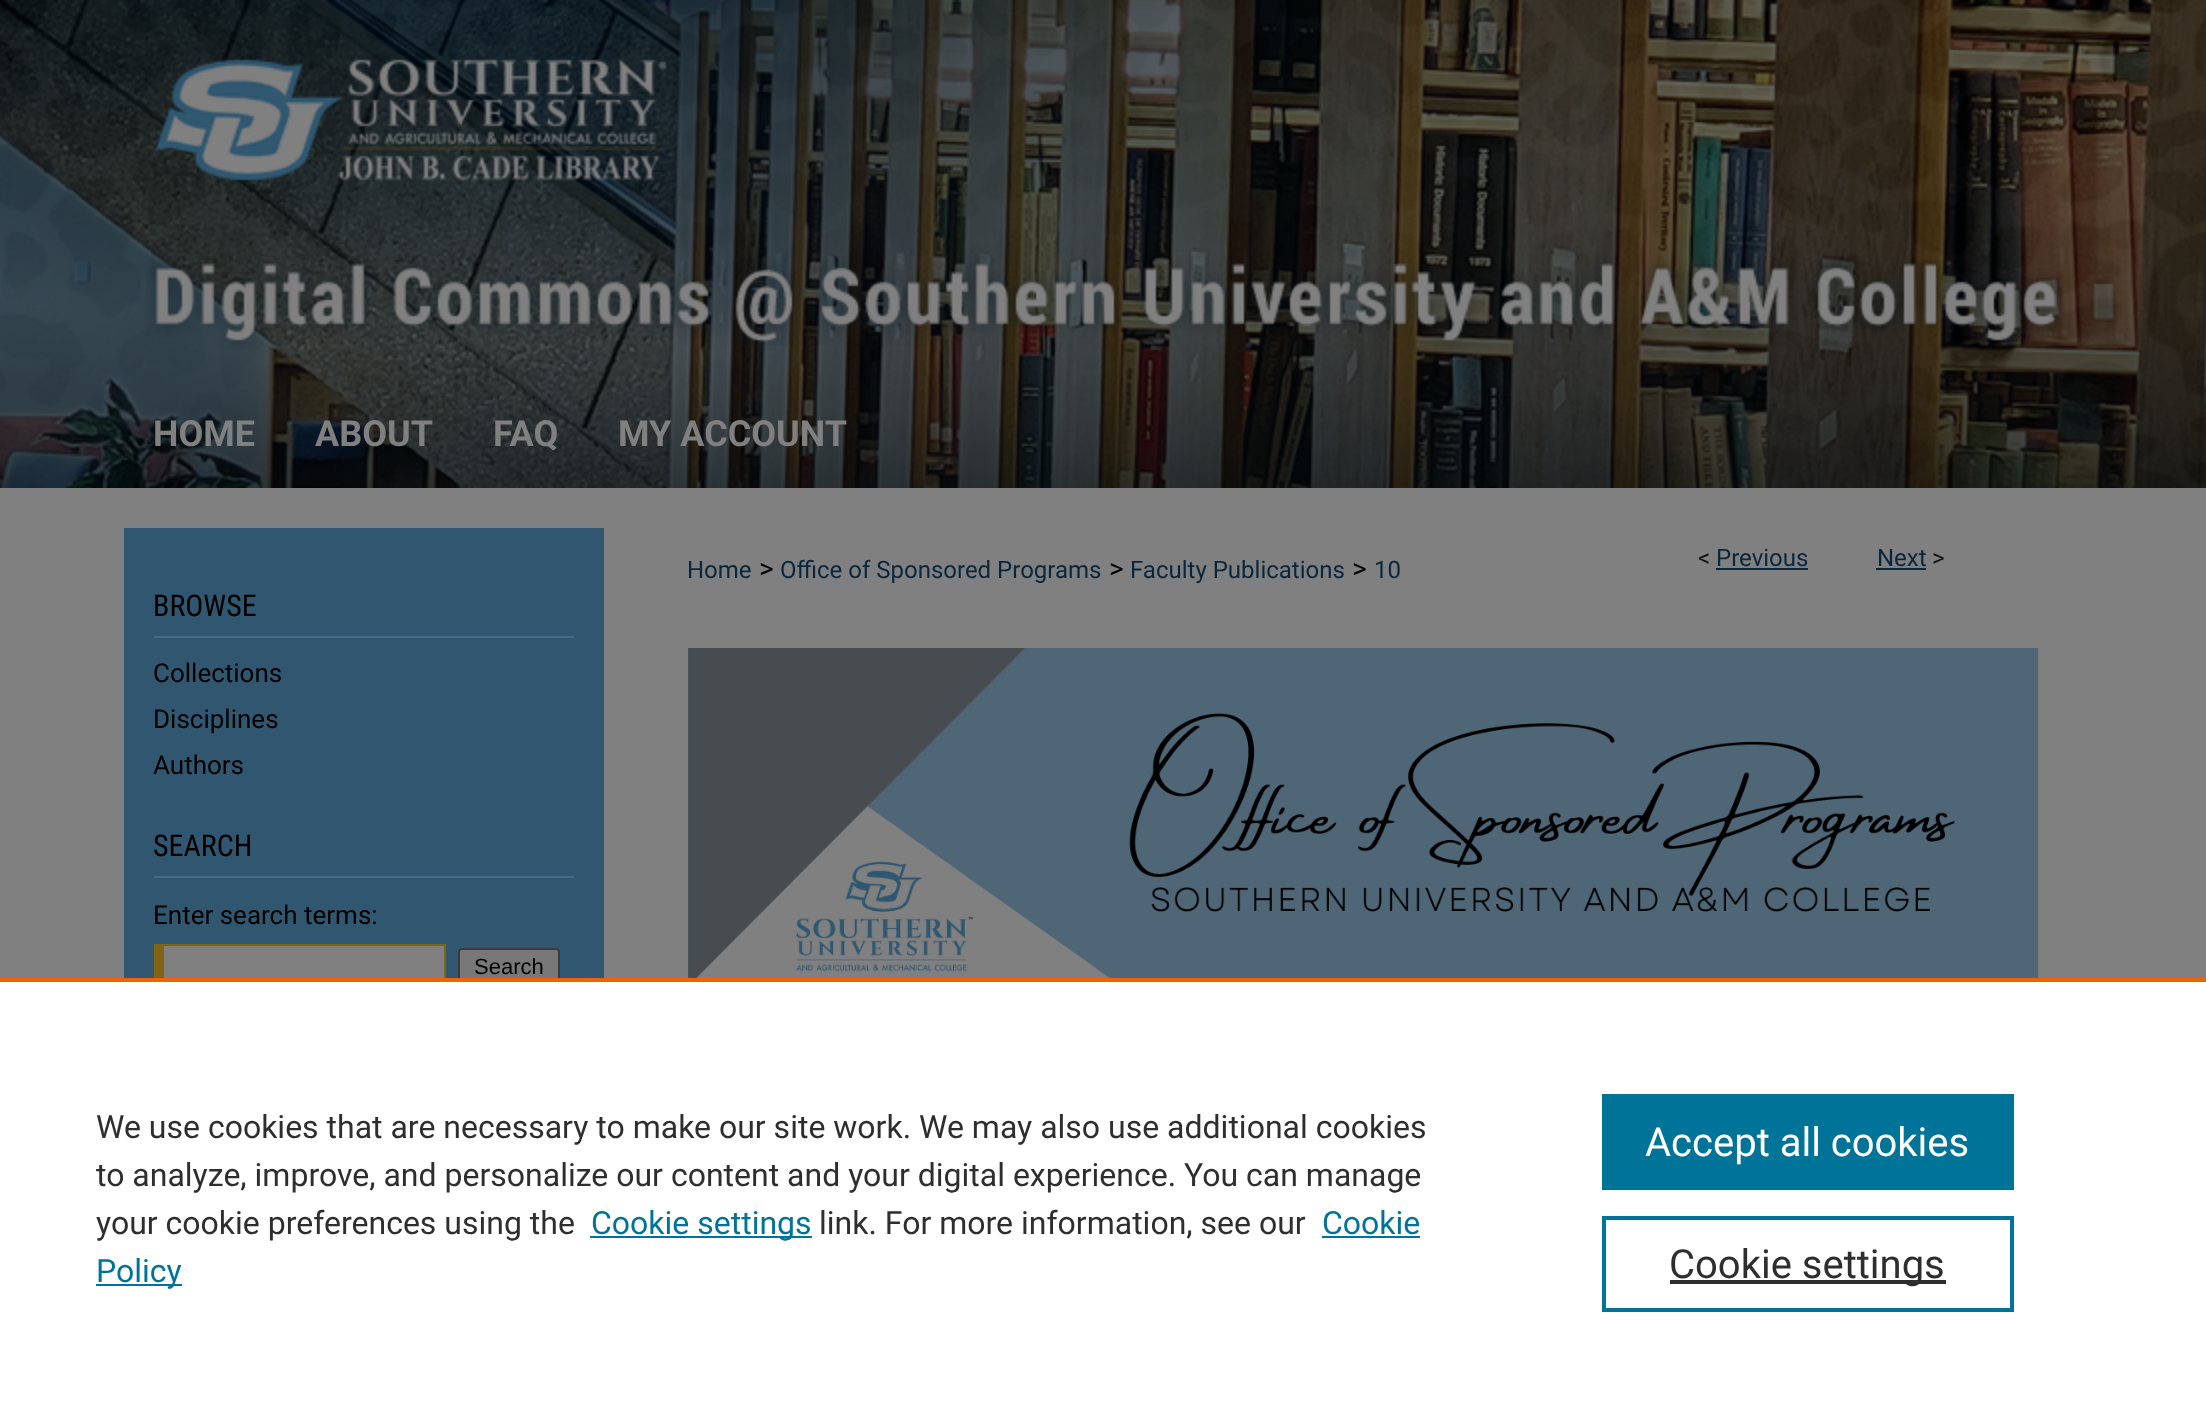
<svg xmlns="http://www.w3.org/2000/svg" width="2206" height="1418">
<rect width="100%" height="100%" fill="#808080"/>
<image x="0" y="0" width="2206" height="488" href="media/1.png"/>
<image x="155" y="59" width="512" height="122" href="media/2.png"/>
<image x="146" y="256" width="1919" height="94" href="media/3.png"/>
<text x="153" y="446" style="font-family:Roboto;font-size:36px;font-weight:bold;fill:#808080">HOME</text>
<text x="315" y="446" style="font-family:Roboto;font-size:36px;font-weight:bold;fill:#808080">ABOUT</text>
<text x="493" y="446" style="font-family:Roboto;font-size:36px;font-weight:bold;fill:#808080">FAQ</text>
<text x="618" y="446" style="font-family:Roboto;font-size:36px;font-weight:bold;fill:#808080">MY ACCOUNT</text>
<text x="687" y="578" style="font-family:Roboto;font-size:24px;fill:#08273e">Home</text>
<text x="759" y="578" style="font-family:Roboto;font-size:28px;fill:#000">&gt;</text>
<text x="780" y="578" style="font-family:Roboto;font-size:24px;fill:#08273e">Office of Sponsored Programs</text>
<text x="1109" y="578" style="font-family:Roboto;font-size:28px;fill:#000">&gt;</text>
<text x="1130" y="578" style="font-family:Roboto;font-size:24px;fill:#08273e">Faculty Publications</text>
<text x="1352" y="578" style="font-family:Roboto;font-size:28px;fill:#000">&gt;</text>
<text x="1374" y="578" style="font-family:Roboto;font-size:24px;fill:#08273e">10</text>
<text x="1698" y="566" style="font-family:Roboto;font-size:24px;fill:#111">&lt;</text>
<text x="1716" y="566" style="font-family:Roboto;font-size:24px;fill:#08273e">Previous</text>
<rect x="1716" y="568" width="92" height="2" fill="#08273e"/>
<text x="1877" y="566" style="font-family:Roboto;font-size:24px;fill:#08273e">Next</text>
<rect x="1876" y="568" width="50" height="2" fill="#08273e"/>
<text x="1932" y="566" style="font-family:Roboto;font-size:24px;fill:#111">&gt;</text>
<image x="688" y="648" width="1350" height="330" href="media/4.png"/>
<rect x="124" y="528" width="480" height="450" fill="#315770"/>
<rect x="154" y="636" width="420" height="2" fill="#4b697c"/>
<text x="153" y="616" style="font-family:Roboto Condensed;font-size:30px;fill:#000">BROWSE</text>
<text x="153" y="682" style="font-family:Roboto;font-size:26px;fill:#000">Collections</text>
<text x="153" y="728" style="font-family:Roboto;font-size:26px;fill:#000">Disciplines</text>
<text x="153" y="774" style="font-family:Roboto;font-size:26px;fill:#000">Authors</text>
<rect x="154" y="876" width="420" height="2" fill="#4b697c"/>
<text x="153" y="856" style="font-family:Roboto Condensed;font-size:30px;fill:#000">SEARCH</text>
<text x="153" y="924" style="font-family:Roboto;font-size:26px;fill:#000">Enter search terms:</text>
<rect x="164" y="946" width="280" height="32" fill="#808080"/>
<rect x="164" y="944" width="282" height="2" fill="#806416"/>
<rect x="444" y="944" width="2" height="42" fill="#806416"/>
<rect x="154" y="944" width="10" height="34" fill="#806416"/>
<rect x="459" y="949" width="100" height="34" rx="3" fill="#787878" stroke="#3b3b3b" stroke-width="2"/>
<text x="474" y="974" style="font-family:Liberation Sans;font-size:22px;fill:#000">Search</text>
<rect y="982" width="2206" height="436" fill="#fff"/>
<rect y="978" width="2206" height="4" fill="#eb6500"/>
<text x="96" y="1138" style="font-family:Roboto;font-size:32px;fill:#2e2e2e">We use cookies that are necessary to make our site work. We may also use additional cookies</text>
<text x="96" y="1186" style="font-family:Roboto;font-size:32px;fill:#2e2e2e">to analyze, improve, and personalize our content and your digital experience. You can manage</text>
<text x="96" y="1234" style="font-family:Roboto;font-size:32px;fill:#2e2e2e">your cookie preferences using the</text>
<rect x="590" y="1236" width="222" height="2" fill="#007398"/>
<text x="591" y="1234" style="font-family:Roboto;font-size:32px;fill:#007398">Cookie settings</text>
<text x="819" y="1234" style="font-family:Roboto;font-size:32px;fill:#2e2e2e">link. For more information, see our</text>
<text x="1322" y="1234" style="font-family:Roboto;font-size:32px;fill:#007398">Cookie</text>
<rect x="1322" y="1236" width="98" height="2" fill="#007398"/>
<rect x="96" y="1284" width="86" height="2" fill="#007398"/>
<text x="96" y="1282" style="font-family:Roboto;font-size:32px;fill:#007398">Policy</text>
<rect x="1602" y="1094" width="412" height="96" fill="#007398"/>
<text x="1645" y="1156" style="font-family:Roboto;font-size:40px;fill:#fff">Accept all cookies</text>
<rect x="1604" y="1218" width="408" height="92" fill="none" stroke="#007398" stroke-width="4"/>
<rect x="1670" y="1280" width="276" height="4" fill="#2e2e2e"/>
<text x="1669" y="1278" style="font-family:Roboto;font-size:40px;fill:#2e2e2e">Cookie settings</text>
</svg>
